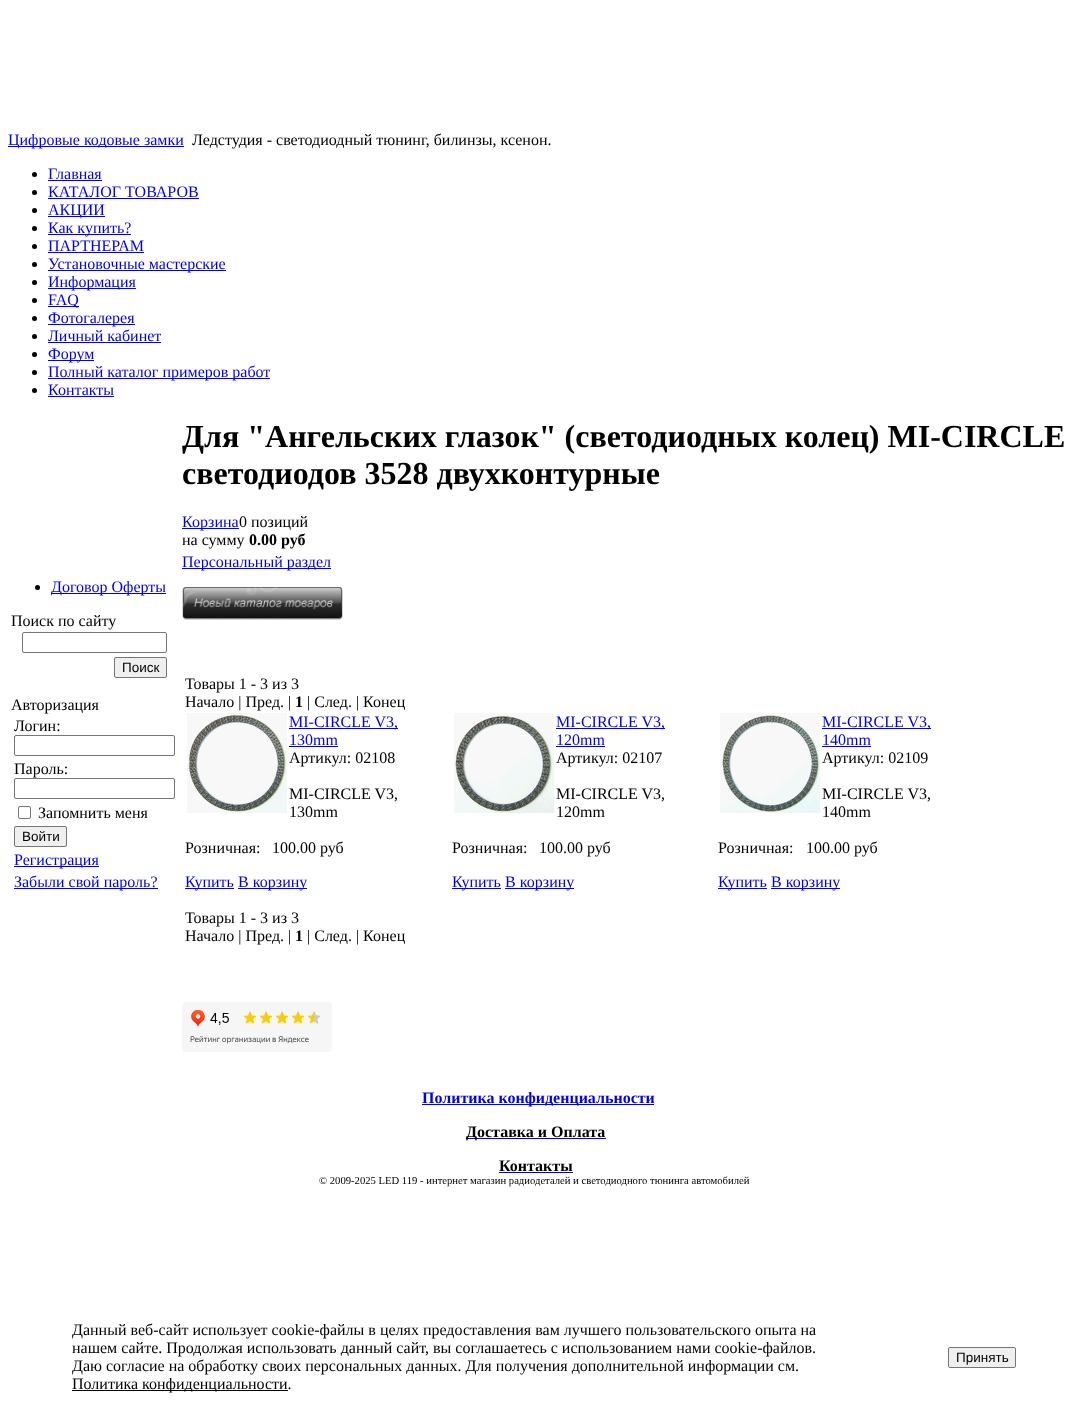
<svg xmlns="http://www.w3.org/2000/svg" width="1072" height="1405">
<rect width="100%" height="100%" fill="#fff"/>
<rect x="8" y="146" width="176" height="1" fill="#00e"/>
<text x="8" y="145" style="font-family:Liberation Serif;font-size:16px;fill:#00e">Цифровые кодовые замки</text>
<text x="192" y="145" style="font-family:Liberation Serif;font-size:16px;fill:#000">Ледстудия - светодиодный тюнинг, билинзы, ксенон.</text>
<circle cx="34.5" cy="174.5" r="2.5" fill="#000"/>
<text x="48" y="179" style="font-family:Liberation Serif;font-size:16px;fill:#00e">Главная</text>
<rect x="48" y="180" width="54" height="1" fill="#00e"/>
<circle cx="34.5" cy="192.5" r="2.5" fill="#000"/>
<text x="48" y="197" style="font-family:Liberation Serif;font-size:16px;fill:#00e">КАТАЛОГ ТОВАРОВ</text>
<rect x="48" y="198" width="151" height="1" fill="#00e"/>
<circle cx="34.5" cy="210.5" r="2.5" fill="#000"/>
<rect x="48" y="216" width="57" height="1" fill="#00e"/>
<text x="48" y="215" style="font-family:Liberation Serif;font-size:16px;fill:#00e">АКЦИИ</text>
<circle cx="34.5" cy="228.5" r="2.5" fill="#000"/>
<rect x="48" y="234" width="83" height="1" fill="#00e"/>
<text x="48" y="233" style="font-family:Liberation Serif;font-size:16px;fill:#00e">Как купить?</text>
<circle cx="34.5" cy="246.5" r="2.5" fill="#000"/>
<text x="48" y="251" style="font-family:Liberation Serif;font-size:16px;fill:#00e">ПАРТНЕРАМ</text>
<rect x="48" y="252" width="96" height="1" fill="#00e"/>
<circle cx="34.5" cy="264.5" r="2.5" fill="#000"/>
<rect x="48" y="270" width="178" height="1" fill="#00e"/>
<text x="48" y="269" style="font-family:Liberation Serif;font-size:16px;fill:#00e">Установочные мастерские</text>
<circle cx="34.5" cy="282.5" r="2.5" fill="#000"/>
<rect x="48" y="288" width="88" height="1" fill="#00e"/>
<text x="48" y="287" style="font-family:Liberation Serif;font-size:16px;fill:#00e">Информация</text>
<circle cx="34.5" cy="300.5" r="2.5" fill="#000"/>
<rect x="48" y="306" width="31" height="1" fill="#00e"/>
<text x="48" y="305" style="font-family:Liberation Serif;font-size:16px;fill:#00e">FAQ</text>
<circle cx="34.5" cy="318.5" r="2.5" fill="#000"/>
<rect x="48" y="324" width="87" height="1" fill="#00e"/>
<text x="48" y="323" style="font-family:Liberation Serif;font-size:16px;fill:#00e">Фотогалерея</text>
<circle cx="34.5" cy="336.5" r="2.5" fill="#000"/>
<text x="48" y="341" style="font-family:Liberation Serif;font-size:16px;fill:#00e">Личный кабинет</text>
<rect x="48" y="342" width="113" height="1" fill="#00e"/>
<circle cx="34.5" cy="354.5" r="2.5" fill="#000"/>
<rect x="48" y="360" width="46" height="1" fill="#00e"/>
<text x="48" y="359" style="font-family:Liberation Serif;font-size:16px;fill:#00e">Форум</text>
<circle cx="34.5" cy="372.5" r="2.5" fill="#000"/>
<rect x="48" y="378" width="222" height="1" fill="#00e"/>
<text x="48" y="377" style="font-family:Liberation Serif;font-size:16px;fill:#00e">Полный каталог примеров работ</text>
<circle cx="34.5" cy="390.5" r="2.5" fill="#000"/>
<text x="48" y="395" style="font-family:Liberation Serif;font-size:16px;fill:#00e">Контакты</text>
<rect x="48" y="396" width="66" height="1" fill="#00e"/>
<circle cx="37.5" cy="587.5" r="2.5" fill="#000"/>
<rect x="51" y="593" width="115" height="1" fill="#00e"/>
<text x="51" y="592" style="font-family:Liberation Serif;font-size:16px;fill:#00e">Договор Оферты</text>
<text x="11" y="626" style="font-family:Liberation Serif;font-size:16px;fill:#000">Поиск по сайту</text>
<rect x="22.5" y="632.5" width="144" height="20" rx="1.5" fill="none" stroke="#767676"/>
<rect x="114.5" y="657.5" width="52" height="20" rx="1.5" fill="#efefef" stroke="#767676"/>
<text x="122" y="672" style="font-family:Liberation Sans;font-size:13.5px;fill:#000">Поиск</text>
<text x="11" y="710" style="font-family:Liberation Serif;font-size:16px;fill:#000">Авторизация</text>
<text x="14" y="731" style="font-family:Liberation Serif;font-size:16px;fill:#000">Логин:</text>
<rect x="14.5" y="735.5" width="160" height="20" rx="1.5" fill="none" stroke="#767676"/>
<text x="14" y="774" style="font-family:Liberation Serif;font-size:16px;fill:#000">Пароль:</text>
<rect x="14.5" y="778.5" width="160" height="20" rx="1.5" fill="none" stroke="#767676"/>
<rect x="18.5" y="806.5" width="12" height="12" rx="1.5" fill="none" stroke="#767676"/>
<text x="38" y="818" style="font-family:Liberation Serif;font-size:16px;fill:#000">Запомнить меня</text>
<rect x="14.5" y="826.5" width="52" height="20" rx="1.5" fill="#efefef" stroke="#767676"/>
<text x="22" y="841" style="font-family:Liberation Sans;font-size:13.5px;fill:#000">Войти</text>
<rect x="14" y="866" width="85" height="1" fill="#00e"/>
<text x="14" y="865" style="font-family:Liberation Serif;font-size:16px;fill:#00e">Регистрация</text>
<rect x="14" y="888" width="144" height="1" fill="#00e"/>
<text x="14" y="887" style="font-family:Liberation Serif;font-size:16px;fill:#00e">Забыли свой пароль?</text>
<text x="182" y="447" style="font-family:Liberation Serif;font-size:32px;font-weight:bold;fill:#000">Для "Ангельских глазок" (светодиодных колец) MI-CIRCLE</text>
<text x="182" y="484" style="font-family:Liberation Serif;font-size:32px;font-weight:bold;fill:#000">светодиодов 3528 двухконтурные</text>
<rect x="182" y="528" width="57" height="1" fill="#00e"/>
<text x="182" y="527" style="font-family:Liberation Serif;font-size:16px;fill:#00e">Корзина</text>
<text x="239" y="527" style="font-family:Liberation Serif;font-size:16px;fill:#000">0 позиций</text>
<text x="182" y="545" style="font-family:Liberation Serif;font-size:16px;fill:#000">на сумму</text>
<text x="249" y="545" style="font-family:Liberation Serif;font-size:16px;font-weight:bold;fill:#000">0.00 руб</text>
<rect x="182" y="568" width="149" height="1" fill="#00e"/>
<text x="182" y="567" style="font-family:Liberation Serif;font-size:16px;fill:#00e">Персональный раздел</text>
<image x="182" y="587" width="161" height="33" href="media/1.png"/>
<text x="185" y="689" style="font-family:Liberation Serif;font-size:16px;fill:#000">Товары 1 - 3 из 3</text>
<text x="185" y="707" style="font-family:Liberation Serif;font-size:16px;fill:#000">Начало | Пред. |</text>
<text x="295" y="707" style="font-family:Liberation Serif;font-size:16px;font-weight:bold;fill:#000">1</text>
<text x="307" y="707" style="font-family:Liberation Serif;font-size:16px;fill:#000">| След. | Конец</text>
<image x="187" y="713" width="100" height="100" href="media/2.png"/>
<rect x="289" y="728" width="109" height="1" fill="#00e"/>
<text x="289" y="727" style="font-family:Liberation Serif;font-size:16px;fill:#00e">MI-CIRCLE V3,</text>
<text x="289" y="745" style="font-family:Liberation Serif;font-size:16px;fill:#00e">130mm</text>
<rect x="289" y="746" width="49" height="1" fill="#00e"/>
<text x="289" y="763" style="font-family:Liberation Serif;font-size:16px;fill:#000">Артикул: 02108</text>
<text x="289" y="799" style="font-family:Liberation Serif;font-size:16px;fill:#000">MI-CIRCLE V3,</text>
<text x="289" y="817" style="font-family:Liberation Serif;font-size:16px;fill:#000">130mm</text>
<text x="185" y="853" style="font-family:Liberation Serif;font-size:16px;fill:#000">Розничная:</text>
<text x="272" y="853" style="font-family:Liberation Serif;font-size:16px;fill:#000">100.00 руб</text>
<rect x="185" y="888" width="49" height="1" fill="#00e"/>
<text x="185" y="887" style="font-family:Liberation Serif;font-size:16px;fill:#00e">Купить</text>
<rect x="238" y="888" width="69" height="1" fill="#00e"/>
<text x="238" y="887" style="font-family:Liberation Serif;font-size:16px;fill:#00e">В корзину</text>
<image x="454" y="713" width="100" height="100" href="media/3.png"/>
<rect x="556" y="728" width="109" height="1" fill="#00e"/>
<text x="556" y="727" style="font-family:Liberation Serif;font-size:16px;fill:#00e">MI-CIRCLE V3,</text>
<text x="556" y="745" style="font-family:Liberation Serif;font-size:16px;fill:#00e">120mm</text>
<rect x="556" y="746" width="49" height="1" fill="#00e"/>
<text x="556" y="763" style="font-family:Liberation Serif;font-size:16px;fill:#000">Артикул: 02107</text>
<text x="556" y="799" style="font-family:Liberation Serif;font-size:16px;fill:#000">MI-CIRCLE V3,</text>
<text x="556" y="817" style="font-family:Liberation Serif;font-size:16px;fill:#000">120mm</text>
<text x="452" y="853" style="font-family:Liberation Serif;font-size:16px;fill:#000">Розничная:</text>
<text x="539" y="853" style="font-family:Liberation Serif;font-size:16px;fill:#000">100.00 руб</text>
<rect x="452" y="888" width="49" height="1" fill="#00e"/>
<text x="452" y="887" style="font-family:Liberation Serif;font-size:16px;fill:#00e">Купить</text>
<rect x="505" y="888" width="69" height="1" fill="#00e"/>
<text x="505" y="887" style="font-family:Liberation Serif;font-size:16px;fill:#00e">В корзину</text>
<image x="720" y="713" width="100" height="100" href="media/4.png"/>
<rect x="822" y="728" width="109" height="1" fill="#00e"/>
<text x="822" y="727" style="font-family:Liberation Serif;font-size:16px;fill:#00e">MI-CIRCLE V3,</text>
<text x="822" y="745" style="font-family:Liberation Serif;font-size:16px;fill:#00e">140mm</text>
<rect x="822" y="746" width="49" height="1" fill="#00e"/>
<text x="822" y="763" style="font-family:Liberation Serif;font-size:16px;fill:#000">Артикул: 02109</text>
<text x="822" y="799" style="font-family:Liberation Serif;font-size:16px;fill:#000">MI-CIRCLE V3,</text>
<text x="822" y="817" style="font-family:Liberation Serif;font-size:16px;fill:#000">140mm</text>
<text x="718" y="853" style="font-family:Liberation Serif;font-size:16px;fill:#000">Розничная:</text>
<text x="806" y="853" style="font-family:Liberation Serif;font-size:16px;fill:#000">100.00 руб</text>
<rect x="718" y="888" width="49" height="1" fill="#00e"/>
<text x="718" y="887" style="font-family:Liberation Serif;font-size:16px;fill:#00e">Купить</text>
<rect x="771" y="888" width="69" height="1" fill="#00e"/>
<text x="771" y="887" style="font-family:Liberation Serif;font-size:16px;fill:#00e">В корзину</text>
<text x="185" y="923" style="font-family:Liberation Serif;font-size:16px;fill:#000">Товары 1 - 3 из 3</text>
<text x="185" y="941" style="font-family:Liberation Serif;font-size:16px;fill:#000">Начало | Пред. |</text>
<text x="295" y="941" style="font-family:Liberation Serif;font-size:16px;font-weight:bold;fill:#000">1</text>
<text x="307" y="941" style="font-family:Liberation Serif;font-size:16px;fill:#000">| След. | Конец</text>
<image x="182" y="1002" width="150" height="50" href="media/5.png"/>
<rect x="422" y="1104" width="232" height="1" fill="#00e"/>
<text x="422" y="1103" style="font-family:Liberation Serif;font-size:16px;font-weight:bold;fill:#00e">Политика конфиденциальности</text>
<rect x="466" y="1138" width="140" height="1" fill="#00e"/>
<text x="466" y="1137" style="font-family:Liberation Serif;font-size:16px;font-weight:bold;fill:#000">Доставка и Оплата</text>
<text x="499" y="1171" style="font-family:Liberation Serif;font-size:16px;font-weight:bold;fill:#000">Контакты</text>
<rect x="499" y="1172" width="74" height="1" fill="#00e"/>
<text x="319" y="1184" style="font-family:Liberation Serif;font-size:10.65px;fill:#000">© 2009-2025 LED 119 - интернет магазин радиодеталей и светодиодного тюнинга автомобилей</text>
<text x="72" y="1335" style="font-family:Liberation Serif;font-size:16px;fill:#000">Данный веб-сайт использует cookie-файлы в целях предоставления вам лучшего пользовательского опыта на</text>
<text x="72" y="1353" style="font-family:Liberation Serif;font-size:16px;fill:#000">нашем сайте. Продолжая использовать данный сайт, вы соглашаетесь с использованием нами cookie-файлов.</text>
<text x="72" y="1371" style="font-family:Liberation Serif;font-size:16px;fill:#000">Даю согласие на обработку своих персональных данных. Для получения дополнительной информации см.</text>
<rect x="72" y="1390" width="216" height="1" fill="#000"/>
<text x="72" y="1389" style="font-family:Liberation Serif;font-size:16px;fill:#000">Политика конфиденциальности.</text>
<rect x="948.5" y="1347.5" width="67" height="20" rx="1.5" fill="#efefef" stroke="#767676"/>
<text x="956" y="1362" style="font-family:Liberation Sans;font-size:13.5px;fill:#000">Принять</text>
</svg>
